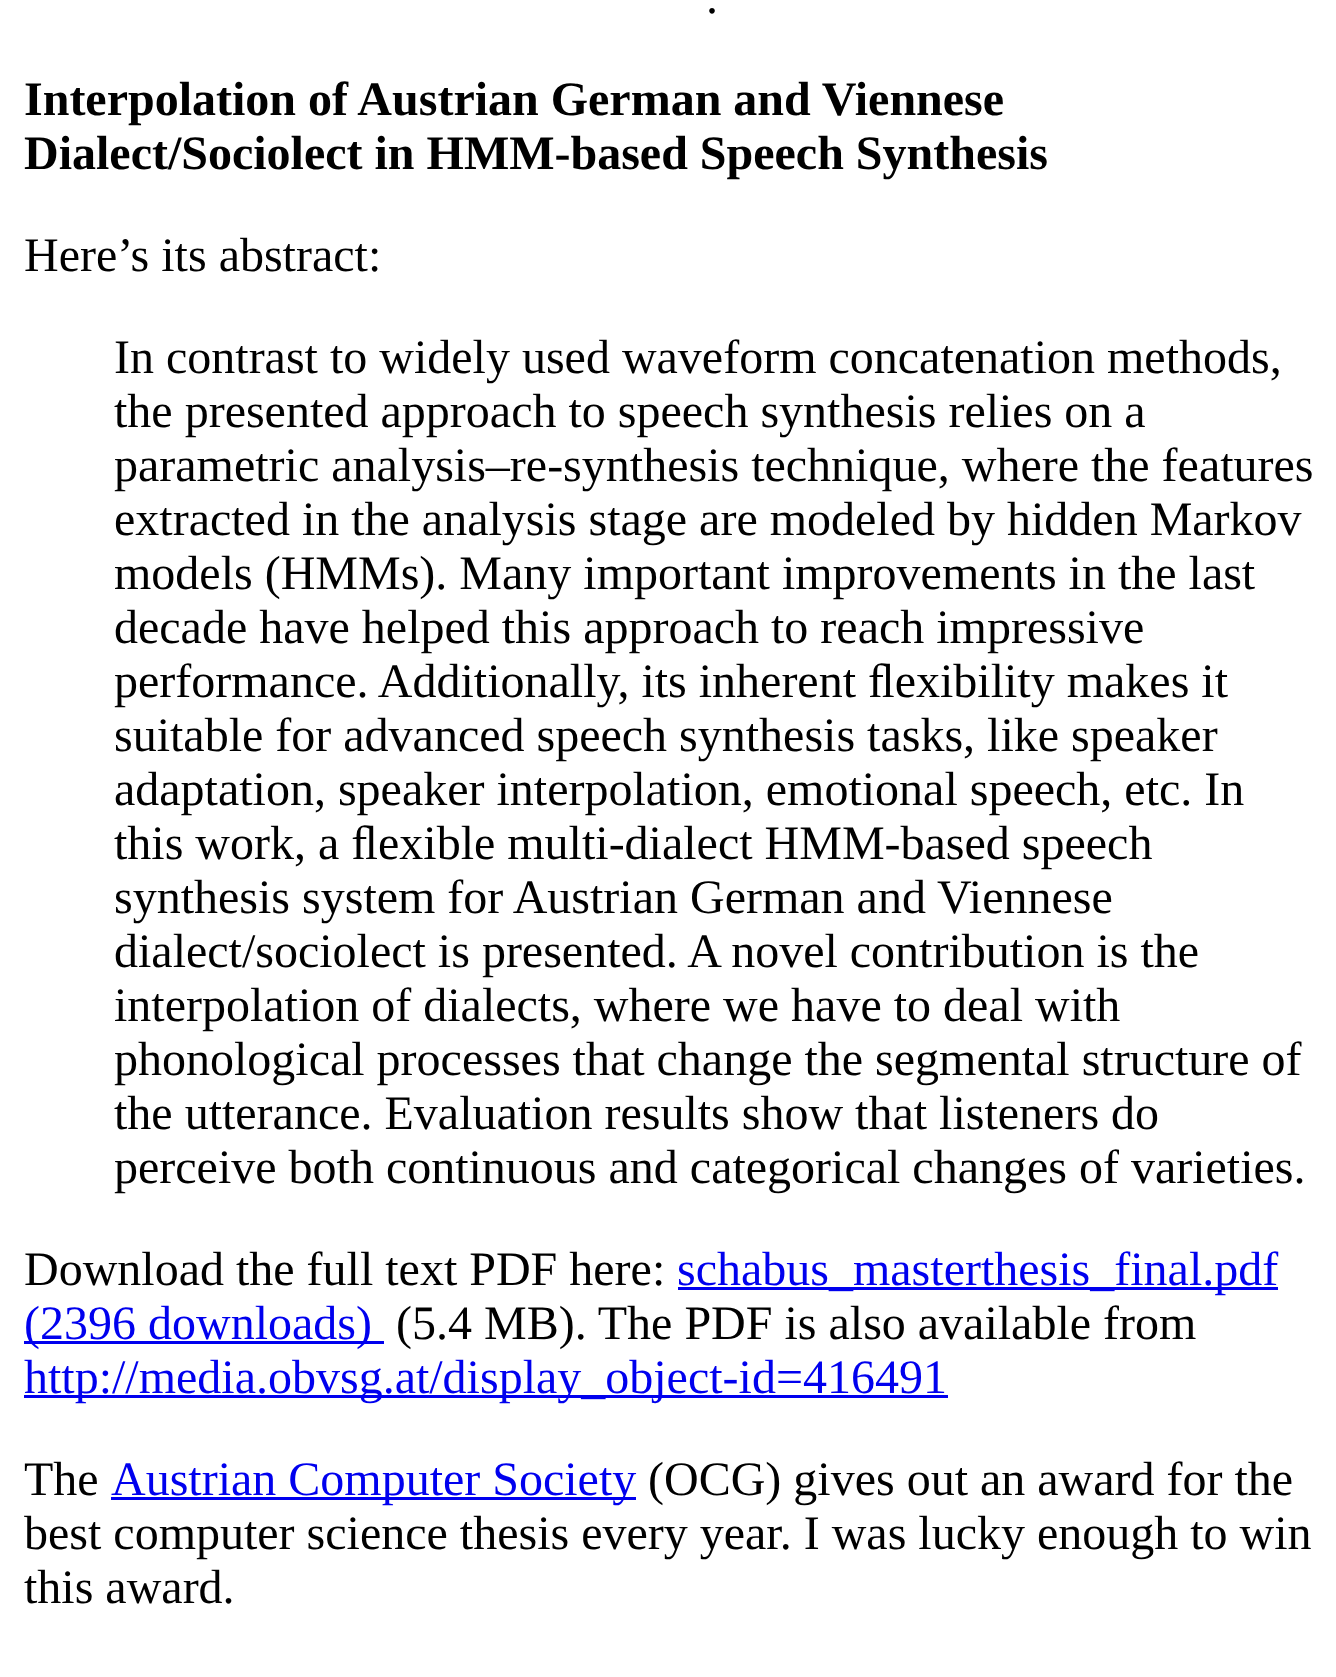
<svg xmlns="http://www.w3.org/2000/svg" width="1336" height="1677">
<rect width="100%" height="100%" fill="#fff"/>
<text x="706" y="13" style="font-family:Liberation Serif;font-size:48px;fill:#000">.</text>
<text x="24" y="115" style="font-family:Liberation Serif;font-size:48px;font-weight:bold;fill:#000">Interpolation of Austrian German and Viennese</text>
<text x="24" y="169" style="font-family:Liberation Serif;font-size:48px;font-weight:bold;fill:#000">Dialect/Sociolect in HMM-based Speech Synthesis</text>
<text x="24" y="271" style="font-family:Liberation Serif;font-size:48px;fill:#000">Here’s its abstract:</text>
<text x="114" y="373" style="font-family:Liberation Serif;font-size:48px;fill:#000">In contrast to widely used waveform concatenation methods,</text>
<text x="114" y="427" style="font-family:Liberation Serif;font-size:48px;fill:#000">the presented approach to speech synthesis relies on a</text>
<text x="114" y="481" style="font-family:Liberation Serif;font-size:48px;fill:#000">parametric analysis–re-synthesis technique, where the features</text>
<text x="114" y="535" style="font-family:Liberation Serif;font-size:48px;fill:#000">extracted in the analysis stage are modeled by hidden Markov</text>
<text x="114" y="589" style="font-family:Liberation Serif;font-size:48px;fill:#000">models (HMMs). Many important improvements in the last</text>
<text x="114" y="643" style="font-family:Liberation Serif;font-size:48px;fill:#000">decade have helped this approach to reach impressive</text>
<text x="114" y="697" style="font-family:Liberation Serif;font-size:48px;fill:#000">performance. Additionally, its inherent ﬂexibility makes it</text>
<text x="114" y="751" style="font-family:Liberation Serif;font-size:48px;fill:#000">suitable for advanced speech synthesis tasks, like speaker</text>
<text x="114" y="805" style="font-family:Liberation Serif;font-size:48px;fill:#000">adaptation, speaker interpolation, emotional speech, etc. In</text>
<text x="114" y="859" style="font-family:Liberation Serif;font-size:48px;fill:#000">this work, a ﬂexible multi-dialect HMM-based speech</text>
<text x="114" y="913" style="font-family:Liberation Serif;font-size:48px;fill:#000">synthesis system for Austrian German and Viennese</text>
<text x="114" y="967" style="font-family:Liberation Serif;font-size:48px;fill:#000">dialect/sociolect is presented. A novel contribution is the</text>
<text x="114" y="1021" style="font-family:Liberation Serif;font-size:48px;fill:#000">interpolation of dialects, where we have to deal with</text>
<text x="114" y="1075" style="font-family:Liberation Serif;font-size:48px;fill:#000">phonological processes that change the segmental structure of</text>
<text x="114" y="1129" style="font-family:Liberation Serif;font-size:48px;fill:#000">the utterance. Evaluation results show that listeners do</text>
<text x="114" y="1183" style="font-family:Liberation Serif;font-size:48px;fill:#000">perceive both continuous and categorical changes of varieties.</text>
<text x="24" y="1285" style="font-family:Liberation Serif;font-size:48px;fill:#000">Download the full text PDF here:</text>
<rect x="678" y="1287" width="600" height="3" fill="#00e"/>
<text x="677" y="1285" style="font-family:Liberation Serif;font-size:48px;fill:#00e">schabus_masterthesis_final.pdf</text>
<rect x="24" y="1341" width="360" height="3" fill="#00e"/>
<text x="24" y="1339" style="font-family:Liberation Serif;font-size:48px;fill:#00e">(2396 downloads)</text>
<text x="396" y="1339" style="font-family:Liberation Serif;font-size:48px;fill:#000">(5.4 MB). The PDF is also available from</text>
<rect x="24" y="1395" width="924" height="3" fill="#00e"/>
<text x="24" y="1393" style="font-family:Liberation Serif;font-size:48px;fill:#00e">http://media.obvsg.at/display_object-id=416491</text>
<text x="24" y="1495" style="font-family:Liberation Serif;font-size:48px;fill:#000">The</text>
<rect x="111" y="1497" width="525" height="3" fill="#00e"/>
<text x="111" y="1495" style="font-family:Liberation Serif;font-size:48px;fill:#00e">Austrian Computer Society</text>
<text x="648" y="1495" style="font-family:Liberation Serif;font-size:48px;fill:#000">(OCG) gives out an award for the</text>
<text x="24" y="1549" style="font-family:Liberation Serif;font-size:48px;fill:#000">best computer science thesis every year. I was lucky enough to win</text>
<text x="24" y="1603" style="font-family:Liberation Serif;font-size:48px;fill:#000">this award.</text>
</svg>
